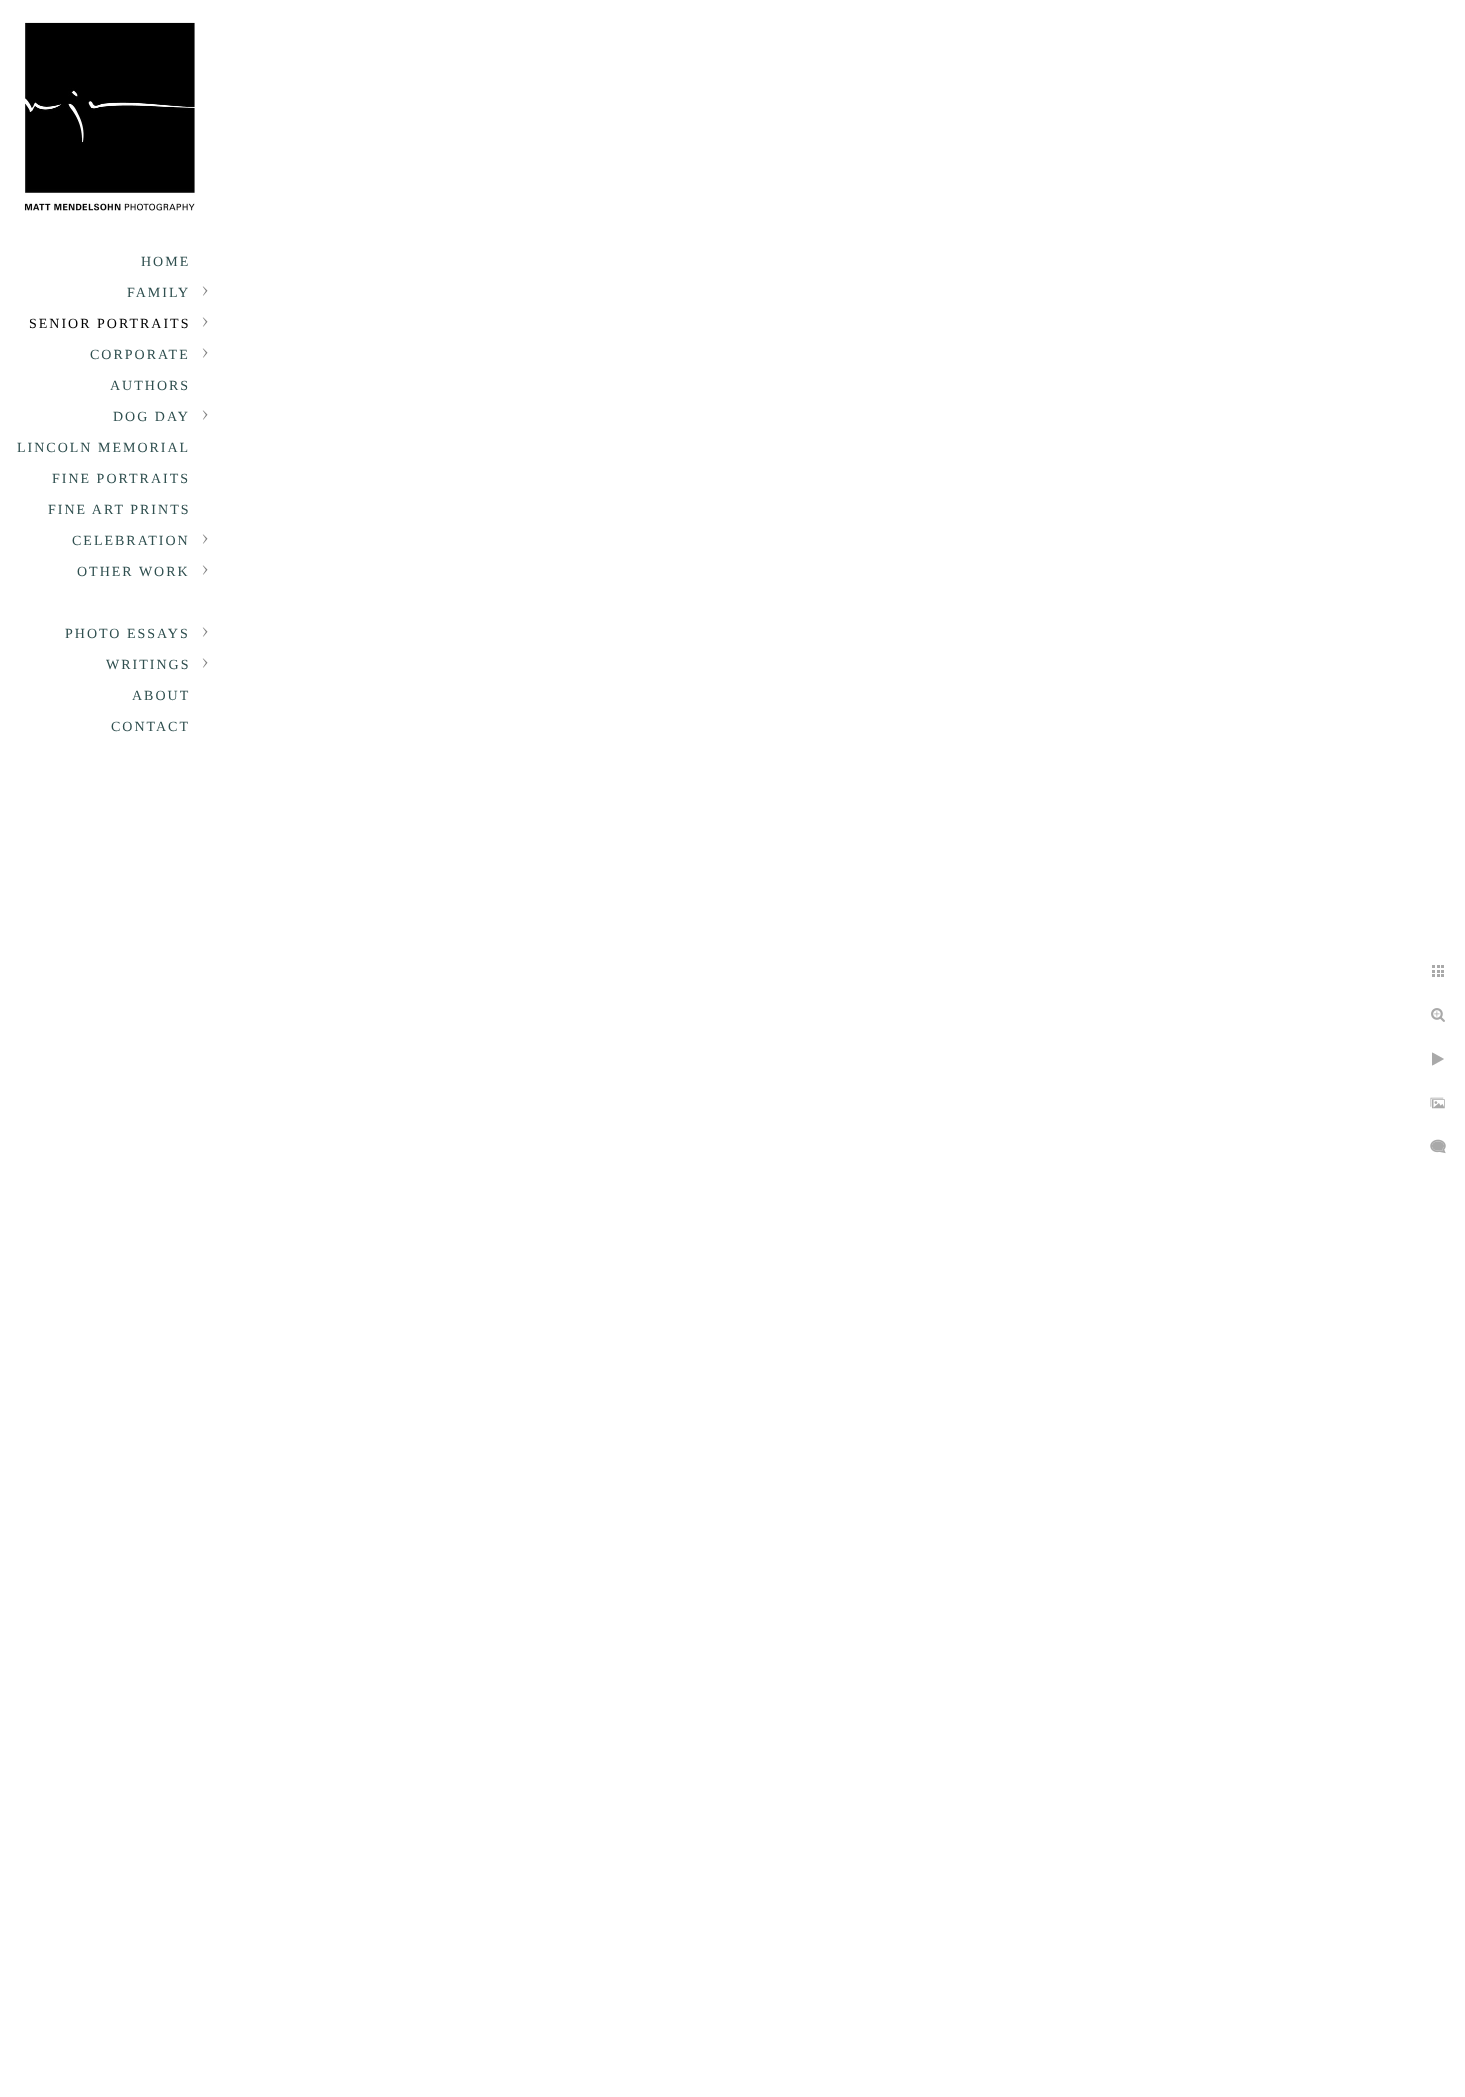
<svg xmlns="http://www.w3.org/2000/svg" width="1465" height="2097">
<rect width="100%" height="100%" fill="#fff"/>
<image x="24" y="22" width="171" height="189" href="media/1.png"/>
<text x="141" y="266" style="font-family:Liberation Serif;font-size:14px;letter-spacing:2px;fill:#2f4f4f">HOME</text>
<text x="127" y="297" style="font-family:Liberation Serif;font-size:14px;letter-spacing:2px;fill:#2f4f4f">FAMILY</text>
<image x="202" y="286" width="6" height="10" href="media/2.png"/>
<text x="29" y="328" style="font-family:Liberation Serif;font-size:14px;letter-spacing:2px;fill:#000">SENIOR PORTRAITS</text>
<image x="202" y="317" width="6" height="10" href="media/2.png"/>
<text x="90" y="359" style="font-family:Liberation Serif;font-size:14px;letter-spacing:2px;fill:#2f4f4f">CORPORATE</text>
<image x="202" y="348" width="6" height="10" href="media/2.png"/>
<text x="110" y="390" style="font-family:Liberation Serif;font-size:14px;letter-spacing:2px;fill:#2f4f4f">AUTHORS</text>
<text x="113" y="421" style="font-family:Liberation Serif;font-size:14px;letter-spacing:2px;fill:#2f4f4f">DOG DAY</text>
<image x="202" y="410" width="6" height="10" href="media/2.png"/>
<text x="17" y="452" style="font-family:Liberation Serif;font-size:14px;letter-spacing:2px;fill:#2f4f4f">LINCOLN MEMORIAL</text>
<text x="52" y="483" style="font-family:Liberation Serif;font-size:14px;letter-spacing:2px;fill:#2f4f4f">FINE PORTRAITS</text>
<text x="48" y="514" style="font-family:Liberation Serif;font-size:14px;letter-spacing:2px;fill:#2f4f4f">FINE ART PRINTS</text>
<text x="72" y="545" style="font-family:Liberation Serif;font-size:14px;letter-spacing:2px;fill:#2f4f4f">CELEBRATION</text>
<image x="202" y="534" width="6" height="10" href="media/2.png"/>
<text x="77" y="576" style="font-family:Liberation Serif;font-size:14px;letter-spacing:2px;fill:#2f4f4f">OTHER WORK</text>
<image x="202" y="565" width="6" height="10" href="media/2.png"/>
<text x="65" y="638" style="font-family:Liberation Serif;font-size:14px;letter-spacing:2px;fill:#2f4f4f">PHOTO ESSAYS</text>
<image x="202" y="627" width="6" height="10" href="media/2.png"/>
<text x="106" y="669" style="font-family:Liberation Serif;font-size:14px;letter-spacing:2px;fill:#2f4f4f">WRITINGS</text>
<image x="202" y="658" width="6" height="10" href="media/2.png"/>
<text x="132" y="700" style="font-family:Liberation Serif;font-size:14px;letter-spacing:2px;fill:#2f4f4f">ABOUT</text>
<text x="111" y="731" style="font-family:Liberation Serif;font-size:14px;letter-spacing:2px;fill:#2f4f4f">CONTACT</text>
<image x="1432" y="965" width="12" height="12" href="media/3.png"/>
<image x="1431" y="1008" width="14" height="14" href="media/4.png"/>
<image x="1432" y="1052" width="12" height="14" href="media/5.png"/>
<image x="1430" y="1097" width="15" height="12" href="media/6.png"/>
<image x="1430" y="1139" width="16" height="15" href="media/7.png"/>
</svg>
